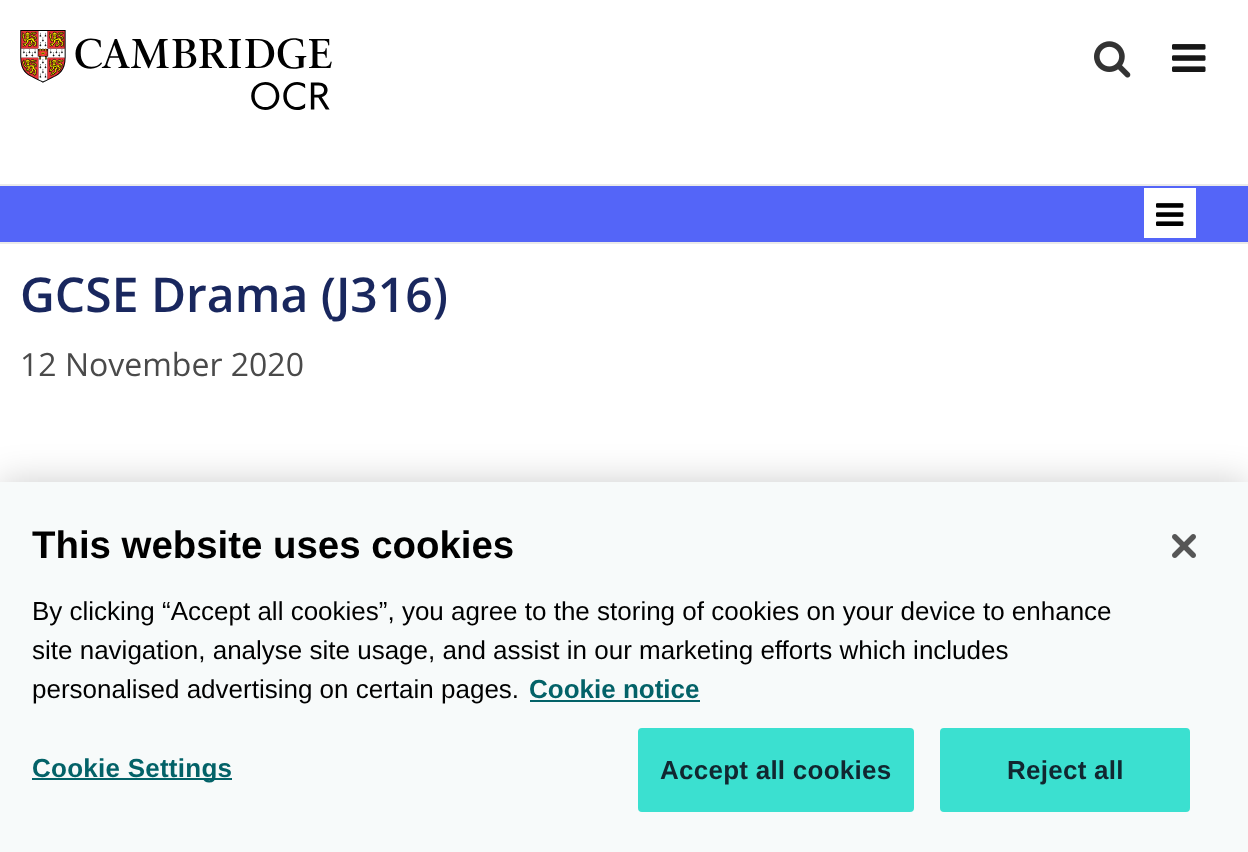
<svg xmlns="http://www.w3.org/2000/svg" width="1248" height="852">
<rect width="100%" height="100%" fill="#fff"/>
<image x="20" y="30" width="312" height="80" href="media/1.png"/>
<image x="1094" y="41" width="37" height="37" href="media/2.png"/>
<image x="1172" y="44" width="34" height="28" href="media/3.png"/>
<rect y="186" width="1248" height="56" fill="#5465f8"/>
<rect y="184" width="1248" height="2" fill="#eaeaea"/>
<rect y="242" width="1248" height="2" fill="#eaeaea"/>
<rect x="1144" y="188" width="52" height="50" fill="#fff"/>
<image x="1156" y="203" width="28" height="23" href="media/4.png"/>
<text x="20" y="312" style="font-family:Open Sans;font-size:48px;font-weight:600;fill:#19275e">GCSE Drama (J316)</text>
<text x="20" y="376" style="font-family:Open Sans;font-size:32px;fill:#4a4a4a">12 November 2020</text>
<rect y="482" width="1248" height="370" fill="#00000033" filter="blur(18px)"/>
<rect y="482" width="1248" height="370" fill="#f7fafa"/>
<text x="32" y="558" style="font-family:Liberation Sans;font-size:38.4px;font-weight:bold;fill:#000">This website uses cookies</text>
<text x="32" y="620" style="font-family:Liberation Sans;font-size:26px;fill:#000">By clicking “Accept all cookies”, you agree to the storing of cookies on your device to enhance</text>
<text x="32" y="659" style="font-family:Liberation Sans;font-size:26px;fill:#000">site navigation, analyse site usage, and assist in our marketing efforts which includes</text>
<text x="32" y="698" style="font-family:Liberation Sans;font-size:26px;fill:#000">personalised advertising on certain pages.</text>
<text x="529" y="698" style="font-family:Liberation Sans;font-size:26px;font-weight:bold;fill:#036268">Cookie notice</text>
<rect x="530" y="700" width="170" height="2" fill="#036268"/>
<rect x="32" y="778" width="200" height="2" fill="#036268"/>
<text x="32" y="777" style="font-family:Liberation Sans;font-size:26px;font-weight:bold;letter-spacing:0.25px;fill:#036268">Cookie Settings</text>
<rect x="639" y="729" width="274" height="82" rx="3" fill="#3be0d0" stroke="#3be0d0" stroke-width="2"/>
<text x="660" y="779" style="font-family:Liberation Sans;font-size:26px;font-weight:bold;letter-spacing:0.25px;fill:#112730">Accept all cookies</text>
<rect x="941" y="729" width="248" height="82" rx="3" fill="#3be0d0" stroke="#3be0d0" stroke-width="2"/>
<text x="1007" y="779" style="font-family:Liberation Sans;font-size:26px;font-weight:bold;letter-spacing:0.25px;fill:#112730">Reject all</text>
<image x="1172" y="534" width="24" height="24" href="media/5.png"/>
</svg>
